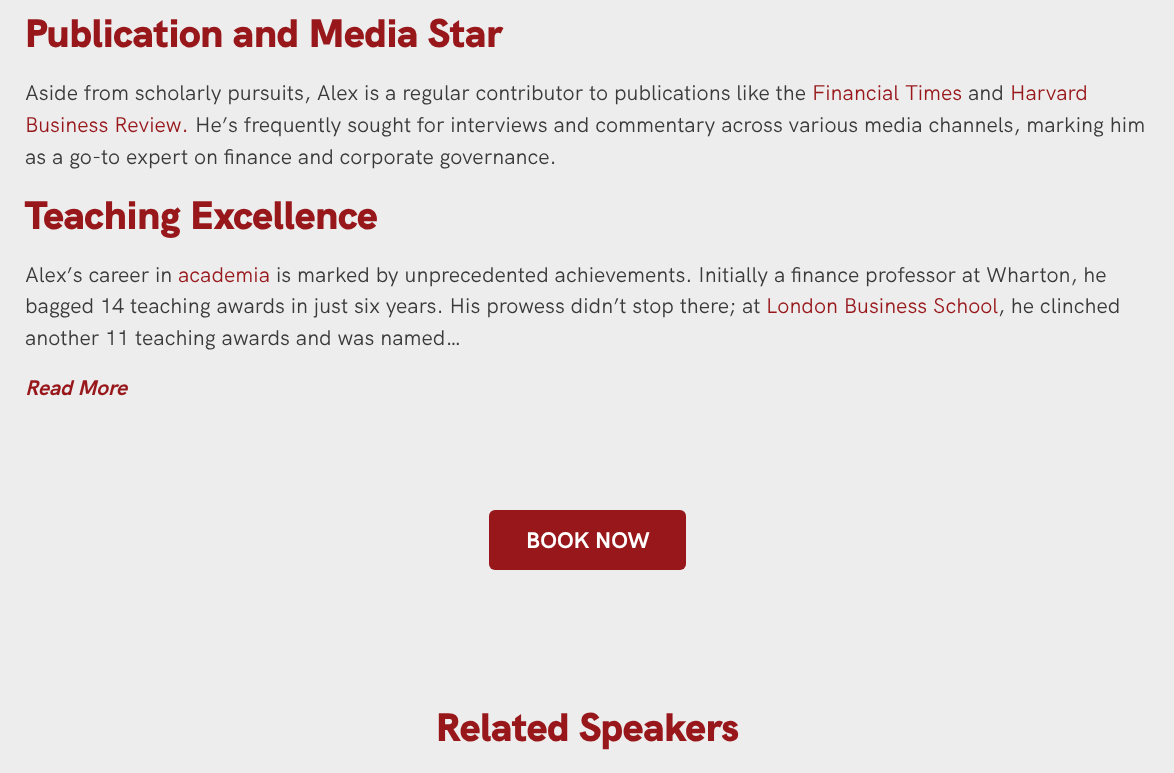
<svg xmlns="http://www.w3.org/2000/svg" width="1174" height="773">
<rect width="100%" height="100%" fill="#ededed"/>
<text x="25" y="47" style="font-family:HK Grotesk;font-size:40px;font-weight:900;fill:#98171b">Publication and Media Star</text>
<text x="25" y="100" style="font-family:HK Grotesk;font-size:21.25px;fill:#3a3a3a">Aside from scholarly pursuits, Alex is a regular contributor to publications like the</text>
<text x="812" y="100" style="font-family:HK Grotesk;font-size:21.25px;fill:#98171b">Financial Times</text>
<text x="968" y="100" style="font-family:HK Grotesk;font-size:21.25px;fill:#3a3a3a">and</text>
<text x="1010" y="100" style="font-family:HK Grotesk;font-size:21.25px;fill:#98171b">Harvard</text>
<text x="25" y="132" style="font-family:HK Grotesk;font-size:21.25px;fill:#98171b">Business Review.</text>
<text x="195" y="132" style="font-family:HK Grotesk;font-size:21.25px;fill:#3a3a3a">He’s frequently sought for interviews and commentary across various media channels, marking him</text>
<text x="25" y="164" style="font-family:HK Grotesk;font-size:21.25px;fill:#3a3a3a">as a go-to expert on finance and corporate governance.</text>
<text x="25" y="229" style="font-family:HK Grotesk;font-size:40px;font-weight:900;fill:#98171b">Teaching Excellence</text>
<text x="25" y="282" style="font-family:HK Grotesk;font-size:21.25px;fill:#3a3a3a">Alex’s career in</text>
<text x="178" y="282" style="font-family:HK Grotesk;font-size:21.25px;fill:#98171b">academia</text>
<text x="276" y="282" style="font-family:HK Grotesk;font-size:21.25px;fill:#3a3a3a">is marked by unprecedented achievements. Initially a finance professor at Wharton, he</text>
<text x="25" y="313" style="font-family:HK Grotesk;font-size:21.25px;fill:#3a3a3a">bagged 14 teaching awards in just six years. His prowess didn’t stop there; at</text>
<text x="766" y="313" style="font-family:HK Grotesk;font-size:21.25px;fill:#98171b">London Business School</text>
<text x="998" y="313" style="font-family:HK Grotesk;font-size:21.25px;fill:#3a3a3a">, he clinched</text>
<text x="25" y="345" style="font-family:HK Grotesk;font-size:21.25px;fill:#3a3a3a">another 11 teaching awards and was named…</text>
<text x="25" y="395" style="font-family:HK Grotesk;font-size:21.25px;font-weight:bold;font-style:italic;fill:#98171b">Read More</text>
<rect x="489" y="510" width="197" height="60" rx="6" fill="#98171b"/>
<text x="526" y="548" style="font-family:HK Grotesk;font-size:22.5px;font-weight:bold;fill:#fff">BOOK NOW</text>
<text x="436" y="741" style="font-family:HK Grotesk;font-size:40px;font-weight:900;fill:#98171b">Related Speakers</text>
</svg>
